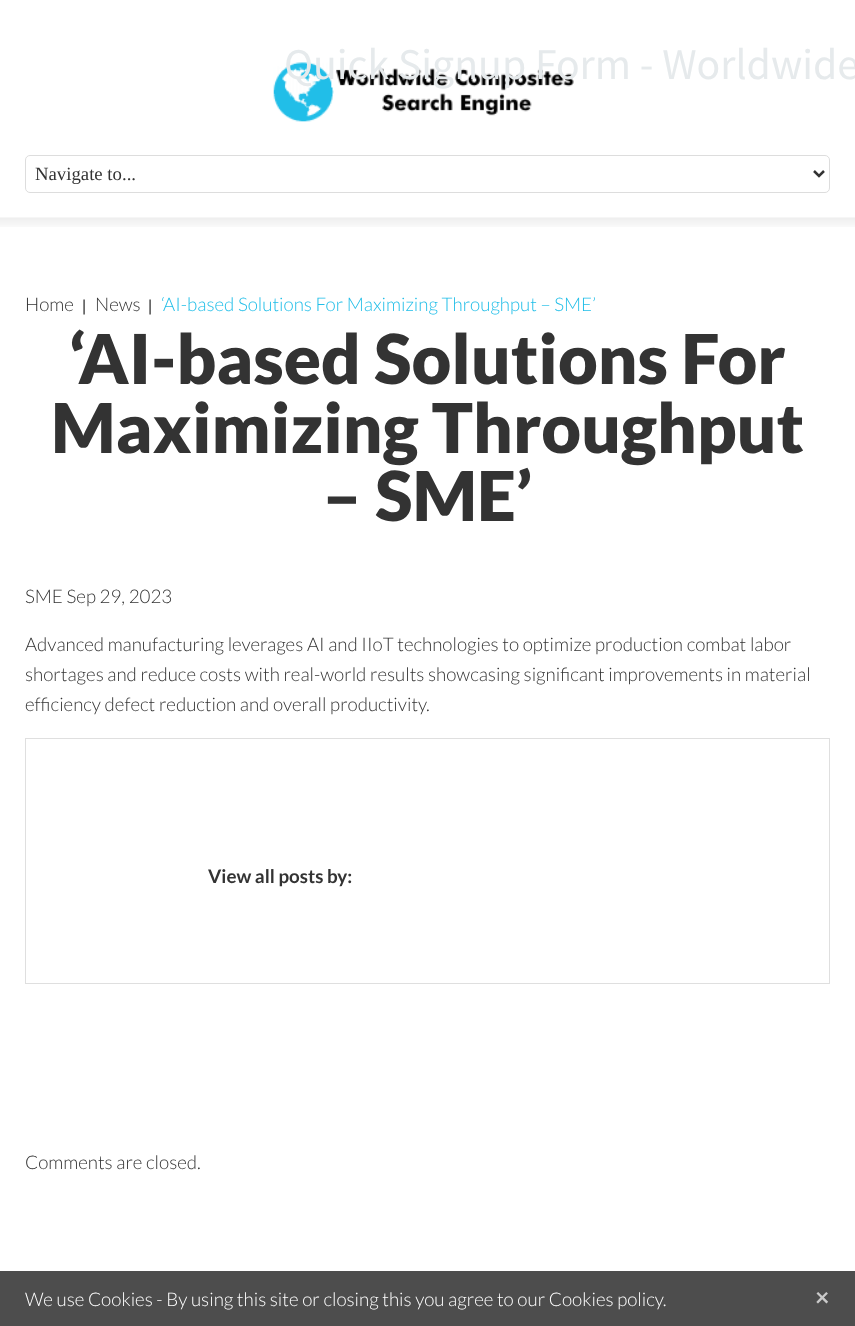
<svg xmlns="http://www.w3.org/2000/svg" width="855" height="1326">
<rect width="100%" height="100%" fill="#fff"/>
<image x="273" y="62" width="301" height="60" href="media/1.png"/>
<text x="284" y="79" style="font-family:Source Sans Pro;font-size:43.75px;fill:#e6eaec">Quick Signup Form - Worldwide</text>
<rect x="25.5" y="155.5" width="804" height="37" rx="4.5" fill="none" stroke="#ddd"/>
<path d="M814 171l5 5l5-5" fill="none" stroke="#333" stroke-width="2.5"/>
<text x="35" y="180" style="font-family:Liberation Serif;font-size:18.75px;fill:#333">Navigate to...</text>
<image x="0" y="217" width="855" height="10" href="media/2.png"/>
<text x="25" y="311" style="font-family:Lato;font-size:18.75px;font-weight:300;fill:#333">Home</text>
<text x="82" y="311" style="font-family:Liberation Sans;font-size:16px;fill:#333">|</text>
<text x="95" y="311" style="font-family:Lato;font-size:18.75px;font-weight:300;fill:#333">News</text>
<text x="148" y="311" style="font-family:Liberation Sans;font-size:16px;fill:#333">|</text>
<text x="161" y="311" style="font-family:Lato;font-size:18.75px;font-weight:300;fill:#21bee8">‘AI-based Solutions For Maximizing Throughput – SME’</text>
<text x="69" y="384" style="font-family:Lato;font-size:68.75px;font-weight:900;fill:#333">‘AI-based Solutions For</text>
<text x="51" y="453" style="font-family:Lato;font-size:68.75px;font-weight:900;fill:#333">Maximizing Throughput</text>
<text x="322" y="521" style="font-family:Lato;font-size:68.75px;font-weight:900;fill:#333">– SME’</text>
<text x="25" y="603" style="font-family:Lato;font-size:18.75px;font-weight:300;fill:#333">SME Sep 29, 2023</text>
<text x="25" y="651" style="font-family:Lato;font-size:18.75px;font-weight:300;fill:#333">Advanced manufacturing leverages AI and IIoT technologies to optimize production combat labor</text>
<text x="25" y="681" style="font-family:Lato;font-size:18.75px;font-weight:300;fill:#333">shortages and reduce costs with real-world results showcasing significant improvements in material</text>
<text x="25" y="711" style="font-family:Lato;font-size:18.75px;font-weight:300;fill:#333">efficiency defect reduction and overall productivity.</text>
<rect x="25.5" y="738.5" width="804" height="245" fill="none" stroke="#dfdfdf"/>
<text x="208" y="883" style="font-family:Lato;font-size:18.75px;font-weight:bold;fill:#333">View all posts by:</text>
<text x="25" y="1169" style="font-family:Lato;font-size:18.75px;font-weight:300;fill:#333">Comments are closed.</text>
<rect y="1271" width="855" height="55" fill="#4d4d4d"/>
<text x="25" y="1306" style="font-family:Lato;font-size:18.75px;font-weight:300;fill:#fff">We use Cookies - By using this site or closing this you agree to our Cookies policy.</text>
<text x="815" y="1306" style="font-family:Lato;font-size:25px;font-weight:bold;fill:#cacaca">×</text>
</svg>
